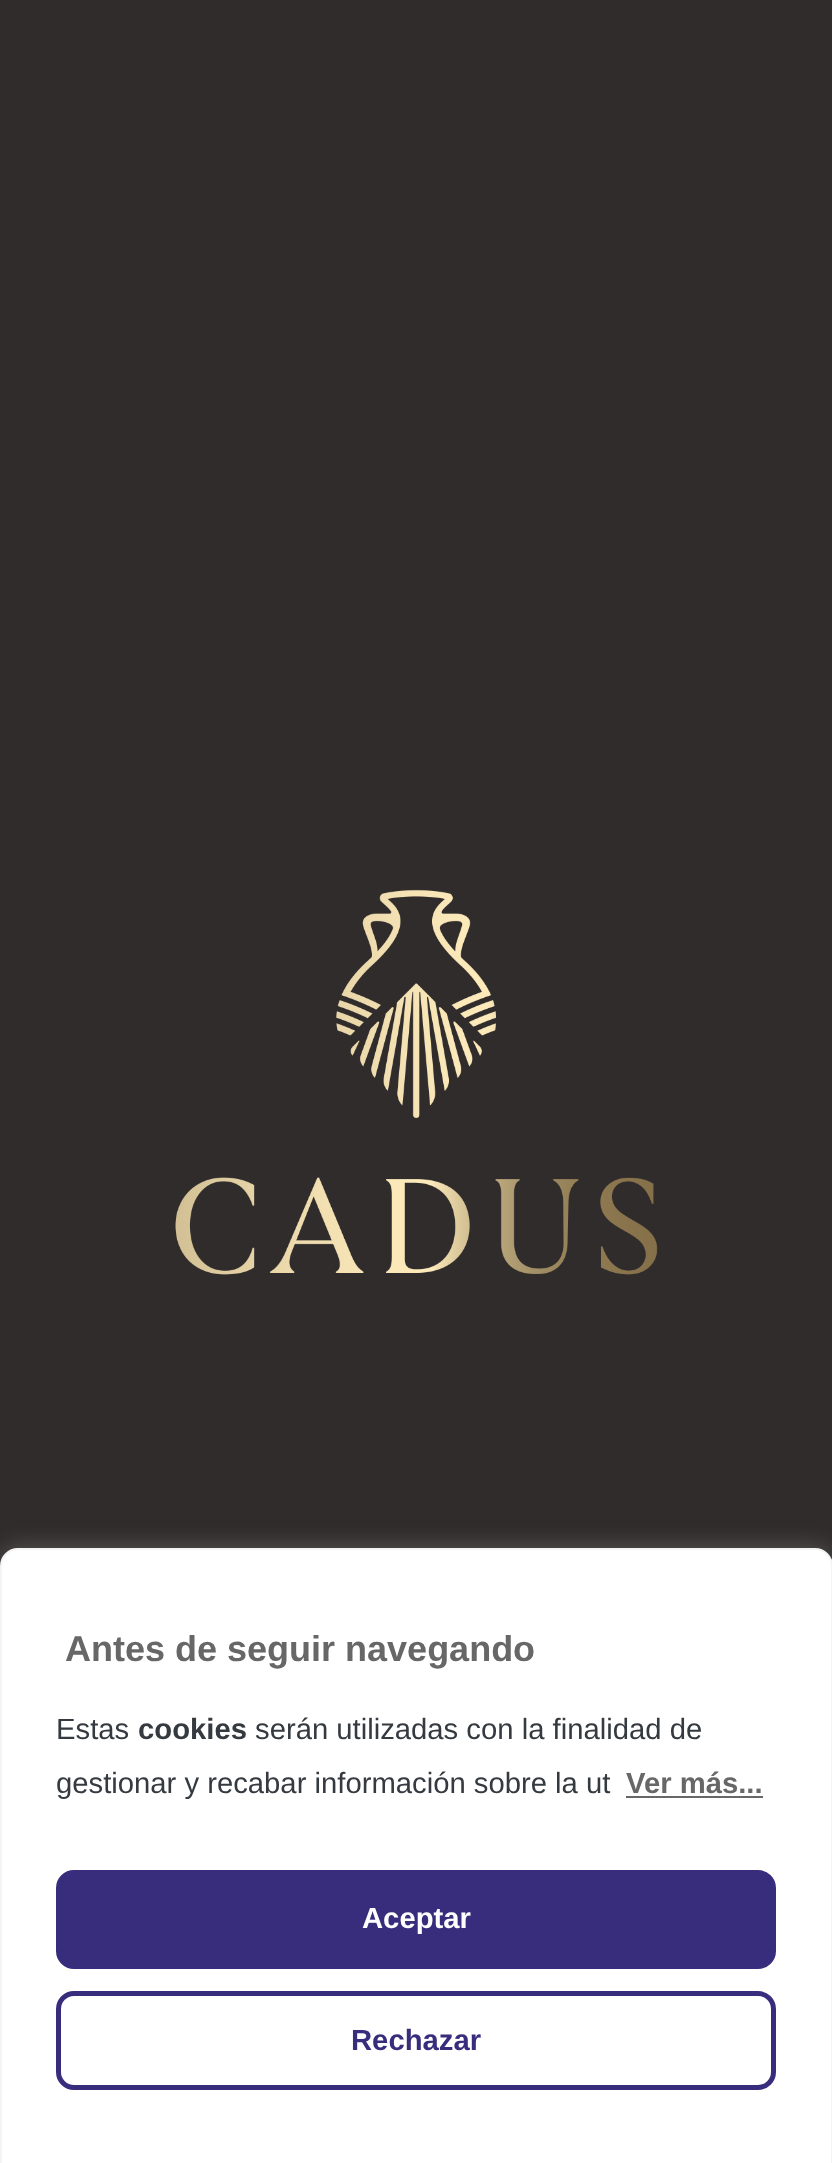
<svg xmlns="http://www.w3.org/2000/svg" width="832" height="2163">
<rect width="100%" height="100%" fill="#302c2c"/>
<image x="175" y="889" width="483" height="386" href="media/1.png"/>
<rect y="1546" width="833" height="616" rx="18" fill="#acabab4d" filter="blur(11px)"/>
<path d="M18 1549h797c9.5 0 17 7.5 17 17v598h-831v-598c0-9.5 7.5-17 17-17z" fill="#fff" stroke="#f4f4f4" stroke-width="2"/>
<text x="65" y="1661" style="font-family:Liberation Sans;font-size:36px;font-weight:bold;fill:#676767">Antes de seguir navegando</text>
<text x="56" y="1739" style="font-family:Liberation Sans;font-size:29.25px;fill:#343a40">Estas</text>
<text x="138" y="1739" style="font-family:Liberation Sans;font-size:29.25px;font-weight:bold;fill:#343a40">cookies</text>
<text x="255" y="1739" style="font-family:Liberation Sans;font-size:29.25px;fill:#343a40">serán utilizadas con la finalidad de</text>
<text x="56" y="1793" style="font-family:Liberation Sans;font-size:29.25px;fill:#343a40">gestionar y recabar información sobre la ut</text>
<text x="626" y="1793" style="font-family:Liberation Sans;font-size:29.25px;font-weight:bold;fill:#676767">Ver más...</text>
<rect x="626" y="1796" width="137" height="2" fill="#676767"/>
<rect x="58.5" y="1872.5" width="715" height="94" rx="15.5" fill="#382d7c" stroke="#382d7c" stroke-width="5"/>
<text x="362" y="1928" style="font-family:Liberation Sans;font-size:29.25px;font-weight:bold;fill:#fff">Aceptar</text>
<rect x="58.5" y="1993.5" width="715" height="94" rx="15.5" fill="none" stroke="#382d7c" stroke-width="5"/>
<text x="351" y="2050" style="font-family:Liberation Sans;font-size:29.25px;font-weight:bold;fill:#382d7c">Rechazar</text>
</svg>
